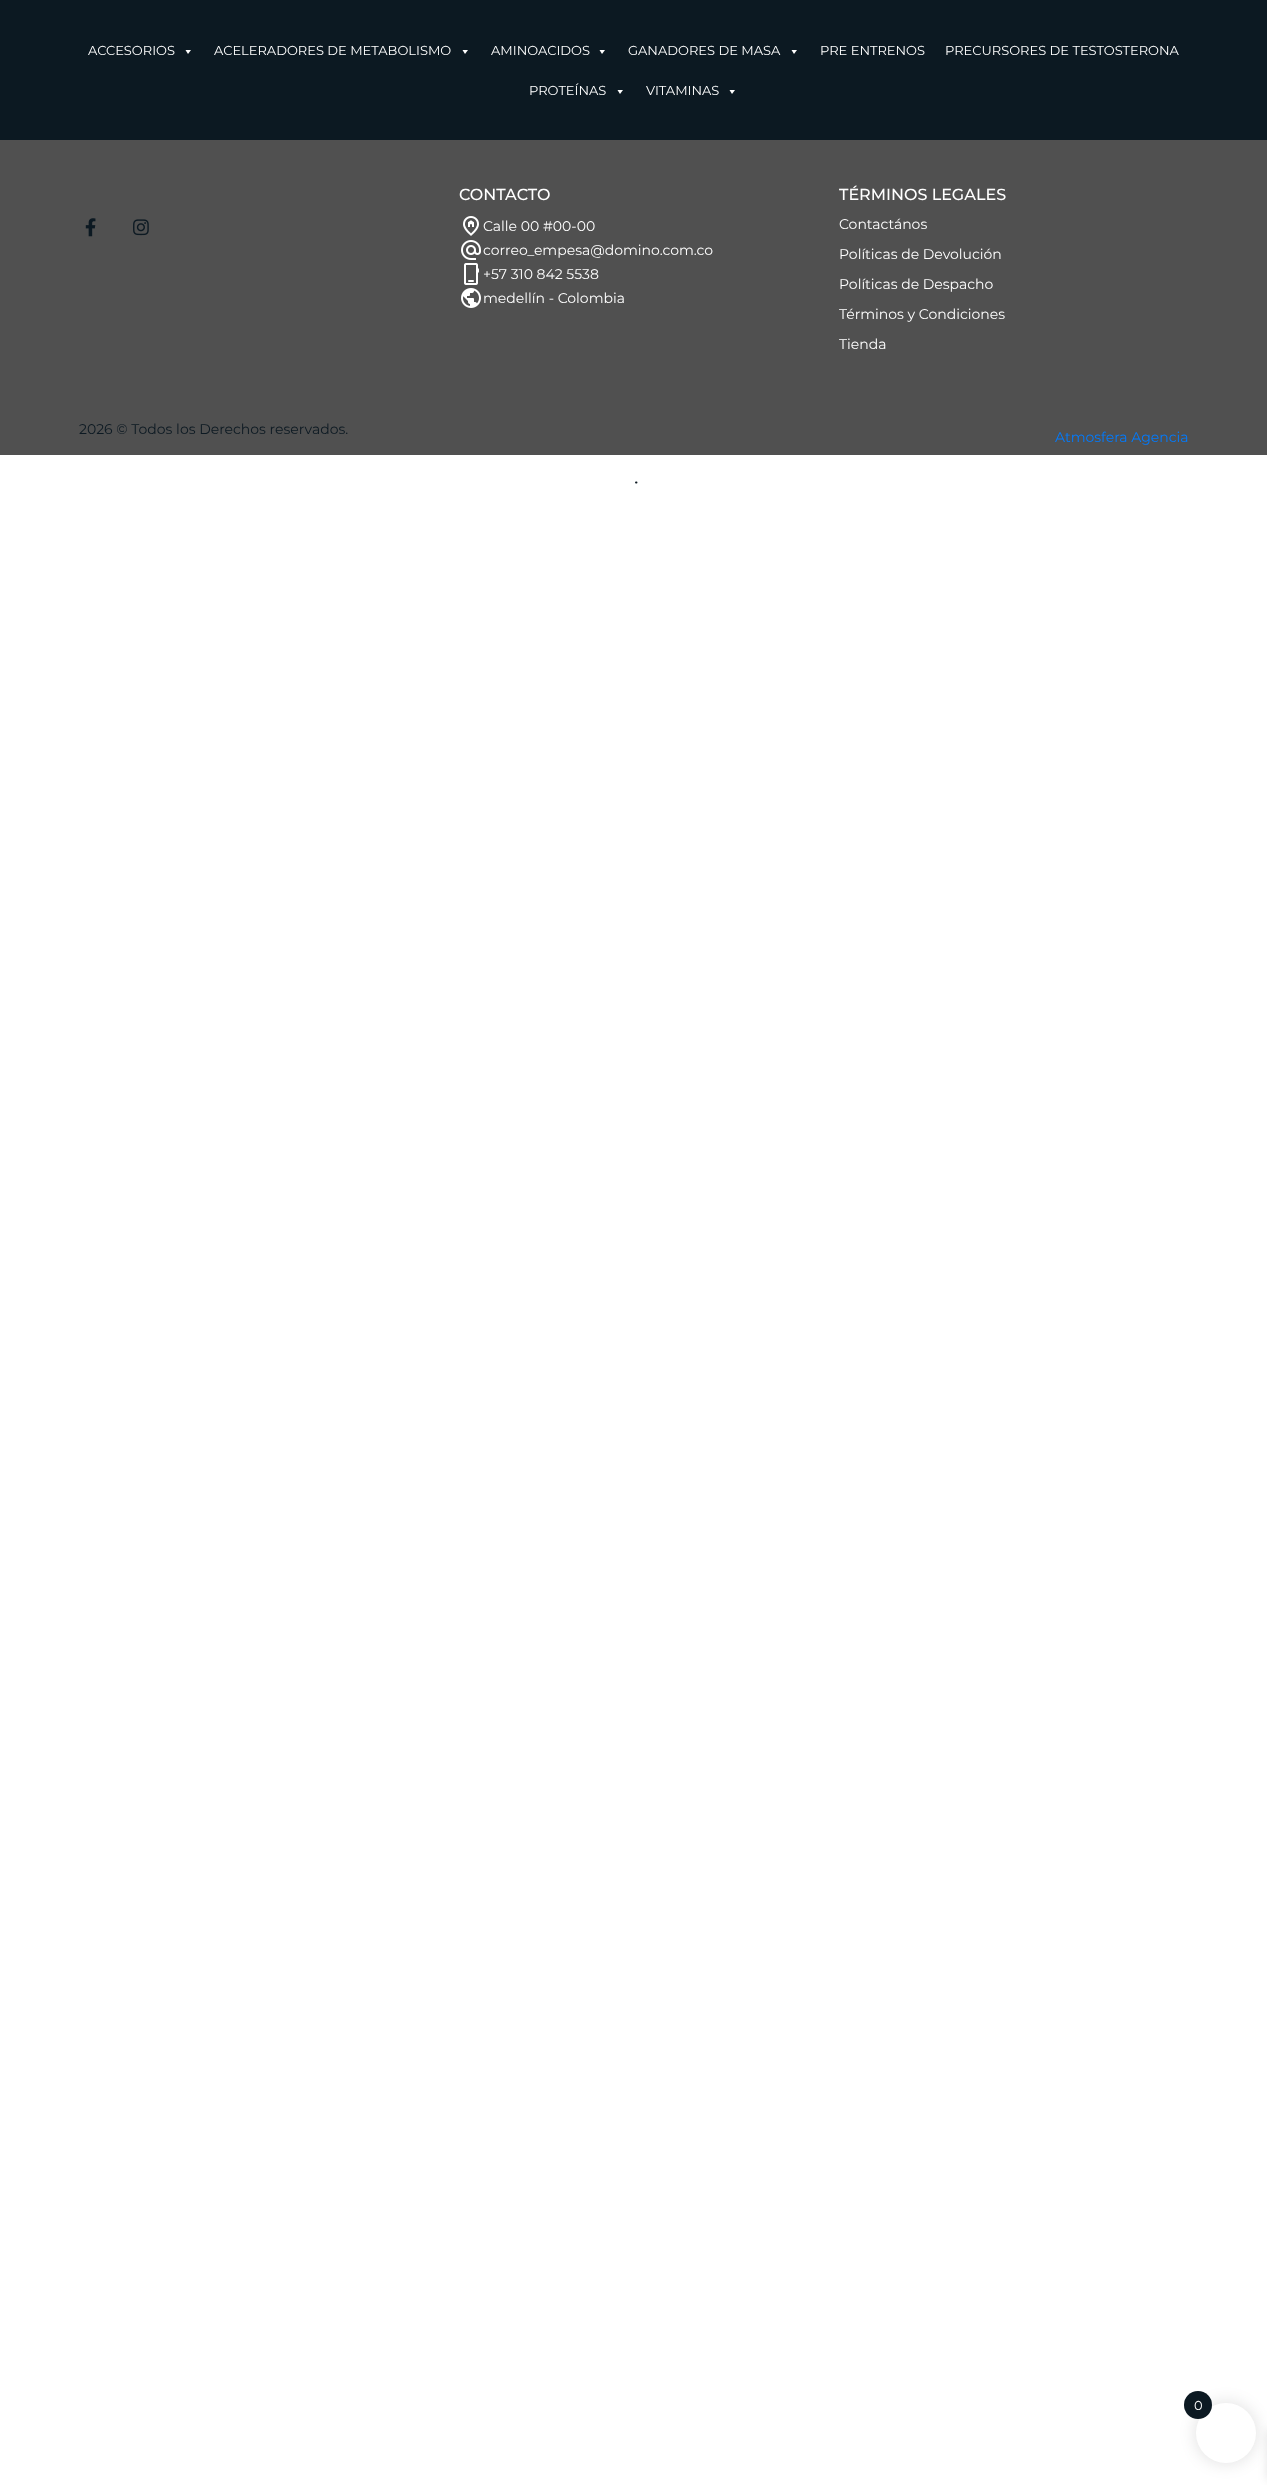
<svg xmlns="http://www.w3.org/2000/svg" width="1267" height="2485">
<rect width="100%" height="100%" fill="#fff"/>
<rect width="1267" height="140" fill="#0c1922"/>
<text x="88" y="55" style="font-family:Montserrat;font-size:13px;fill:#fff">ACCESORIOS</text>
<path d="M191 50l-3 4l-2.5-4z" fill="#fff"/>
<text x="214" y="55" style="font-family:Montserrat;font-size:13px;fill:#fff">ACELERADORES DE METABOLISMO</text>
<path d="M468 50l-3 4l-2.5-4z" fill="#fff"/>
<text x="491" y="55" style="font-family:Montserrat;font-size:13px;fill:#fff">AMINOACIDOS</text>
<path d="M605 50l-3 4l-2.5-4z" fill="#fff"/>
<text x="628" y="55" style="font-family:Montserrat;font-size:13px;fill:#fff">GANADORES DE MASA</text>
<path d="M797 50l-3 4l-2.5-4z" fill="#fff"/>
<text x="820" y="55" style="font-family:Montserrat;font-size:13px;fill:#fff">PRE ENTRENOS</text>
<text x="945" y="55" style="font-family:Montserrat;font-size:13px;fill:#fff">PRECURSORES DE TESTOSTERONA</text>
<text x="529" y="95" style="font-family:Montserrat;font-size:13px;fill:#fff">PROTEÍNAS</text>
<path d="M623 90l-3 4l-2.5-4z" fill="#fff"/>
<text x="646" y="95" style="font-family:Montserrat;font-size:13px;fill:#fff">VITAMINAS</text>
<path d="M735 90l-3 4l-2.5-4z" fill="#fff"/>
<rect y="140" width="1267" height="315" fill="#505050"/>
<image x="85" y="218" width="11" height="19" href="media/1.png"/>
<image x="133" y="219" width="16" height="17" href="media/2.png"/>
<text x="459" y="200" style="font-family:Montserrat;font-size:16px;font-weight:500;fill:#fff">CONTACTO</text>
<image x="463" y="216" width="16" height="20" href="media/3.png"/>
<text x="483" y="231" style="font-family:Montserrat;font-size:14px;fill:#fff">Calle 00 #00-00</text>
<image x="461" y="240" width="20" height="20" href="media/4.png"/>
<text x="483" y="255" style="font-family:Montserrat;font-size:14px;fill:#fff">correo_empesa@domino.com.co</text>
<image x="464" y="263" width="15" height="22" href="media/5.png"/>
<text x="483" y="279" style="font-family:Montserrat;font-size:14px;fill:#fff">+57 310 842 5538</text>
<image x="461" y="288" width="20" height="20" href="media/6.png"/>
<text x="483" y="303" style="font-family:Montserrat;font-size:14px;fill:#fff">medellín - Colombia</text>
<text x="839" y="200" style="font-family:Montserrat;font-size:16px;font-weight:500;fill:#fff">TÉRMINOS LEGALES</text>
<text x="839" y="229" style="font-family:Montserrat;font-size:14px;fill:#fff">Contactános</text>
<text x="839" y="259" style="font-family:Montserrat;font-size:14px;fill:#fff">Políticas de Devolución</text>
<text x="839" y="289" style="font-family:Montserrat;font-size:14px;fill:#fff">Políticas de Despacho</text>
<text x="839" y="319" style="font-family:Montserrat;font-size:14px;fill:#fff">Términos y Condiciones</text>
<text x="839" y="349" style="font-family:Montserrat;font-size:14px;fill:#fff">Tienda</text>
<text x="79" y="434" style="font-family:Montserrat;font-size:14px;fill:#0c1922">2026 © Todos los Derechos reservados.</text>
<text x="1055" y="442" style="font-family:Montserrat;font-size:14px;fill:#007bff">Atmosfera Agencia</text>
<path d="M636 482.5h.5" fill="none" stroke="#0c1922" stroke-width="1.9" stroke-linecap="round"/>
<rect x="1194" y="2401" width="64" height="64" rx="32" fill="#0000001a" filter="blur(7.5px)"/>
<rect x="1267" y="2430" width="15" height="50" fill="#0000001a" filter="blur(5px)"/>
<circle cx="1226" cy="2433" r="30" fill="#fff"/>
<circle cx="1198" cy="2405" r="14" fill="#0c1922"/>
<text x="1194" y="2410" style="font-family:Montserrat;font-size:13px;fill:#fff">0</text>
</svg>
